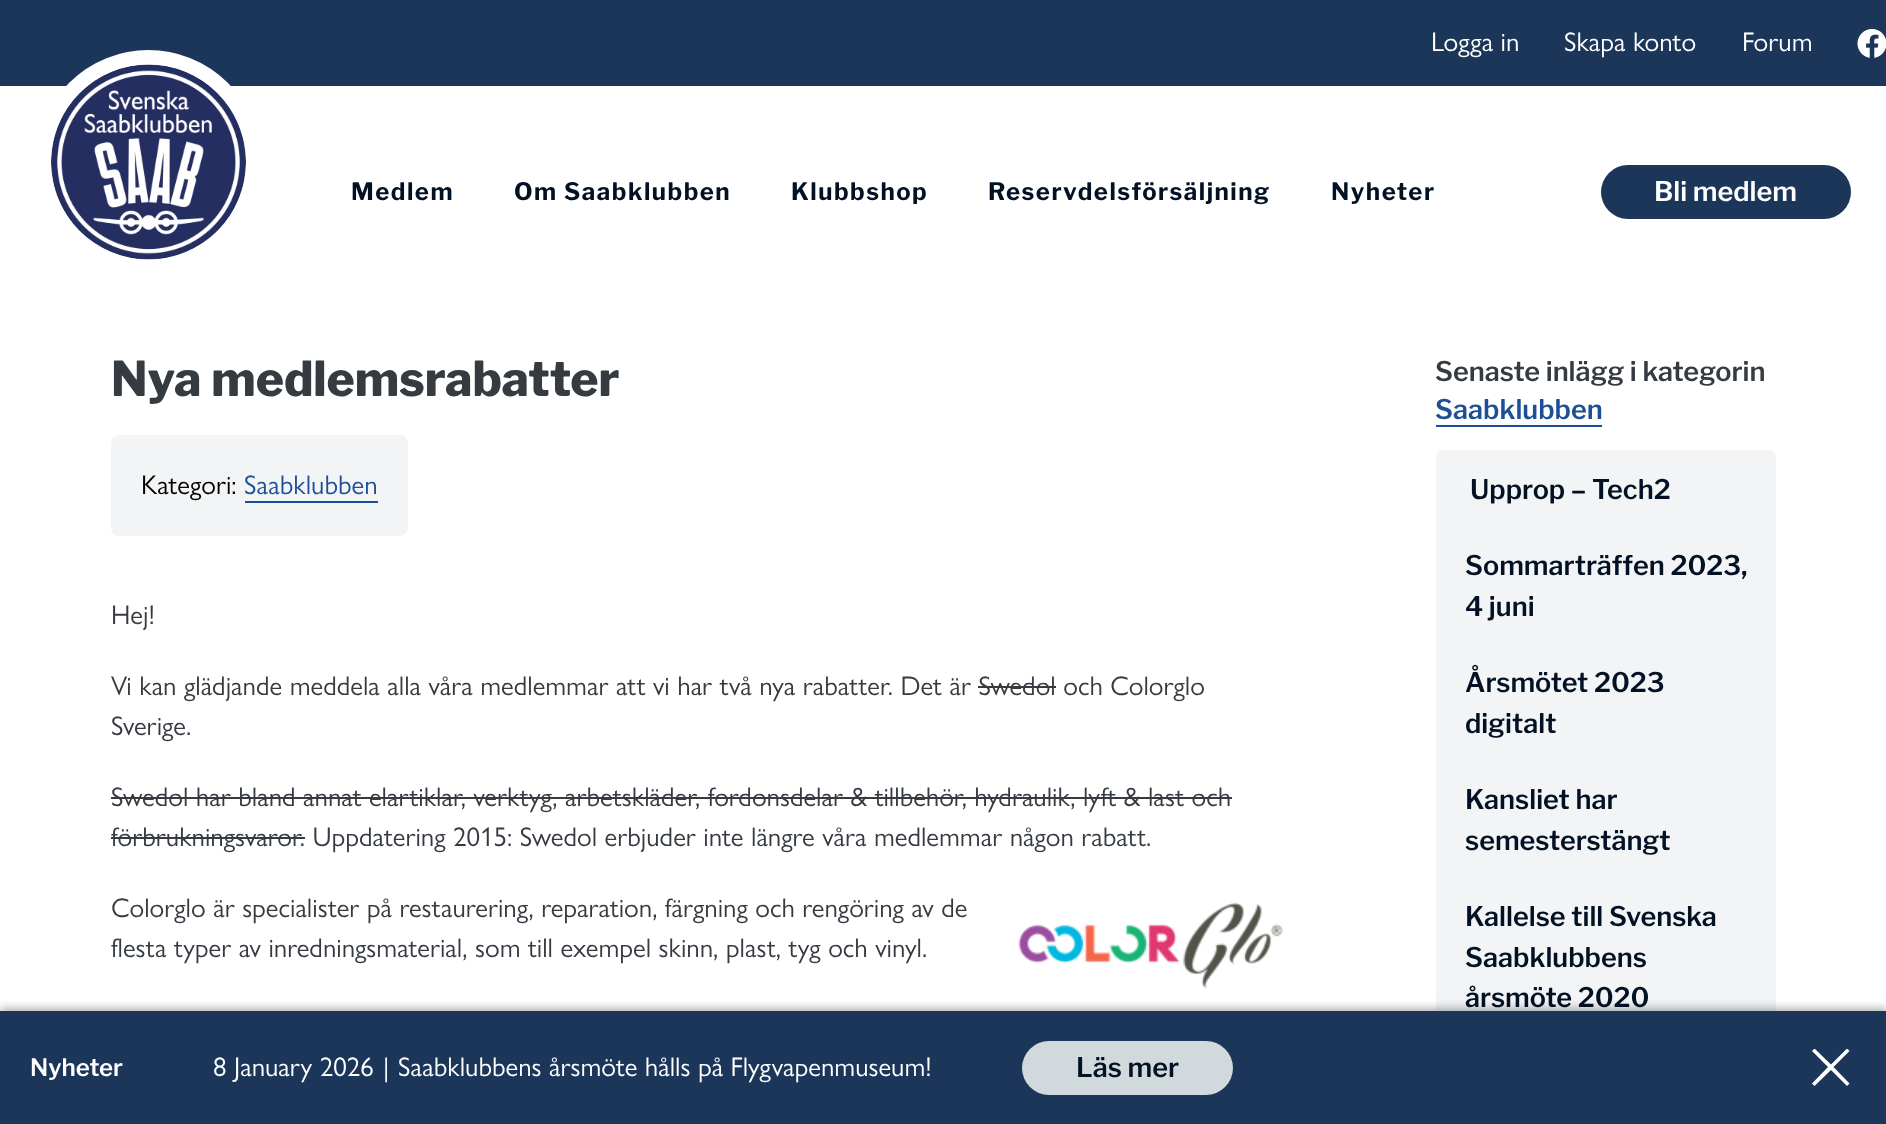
<svg xmlns="http://www.w3.org/2000/svg" width="1886" height="1124">
<defs>
<clipPath id="clip1"><rect x="1812" y="1049" width="38" height="37"/></clipPath>
</defs>
<rect width="100%" height="100%" fill="#fff"/>
<rect width="1886" height="86" fill="#1c365a"/>
<text x="1431" y="51" style="font-family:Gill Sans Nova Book;font-size:27px;fill:#fff">Logga in</text>
<text x="1564" y="51" style="font-family:Gill Sans Nova Book;font-size:27px;fill:#fff">Skapa konto</text>
<text x="1742" y="51" style="font-family:Gill Sans Nova Book;font-size:27px;fill:#fff">Forum</text>
<image x="1857" y="29" width="29" height="29" href="media/1.png"/>
<circle cx="148.5" cy="162.5" r="105" fill="none" stroke="#fff" stroke-width="15"/>
<image x="51" y="64" width="195" height="196" href="media/2.png"/>
<text x="351" y="200" style="font-family:Libre Franklin;font-size:24px;font-weight:bold;letter-spacing:1.5px;fill:#031124">Medlem</text>
<text x="514" y="200" style="font-family:Libre Franklin;font-size:24px;font-weight:bold;letter-spacing:1.5px;fill:#031124">Om Saabklubben</text>
<text x="791" y="200" style="font-family:Libre Franklin;font-size:24px;font-weight:bold;letter-spacing:1.5px;fill:#031124">Klubbshop</text>
<text x="988" y="200" style="font-family:Libre Franklin;font-size:24px;font-weight:bold;letter-spacing:1.5px;fill:#031124">Reservdelsförsäljning</text>
<text x="1331" y="200" style="font-family:Libre Franklin;font-size:24px;font-weight:bold;letter-spacing:1.5px;fill:#031124">Nyheter</text>
<rect x="1601" y="165" width="250" height="54" rx="27" fill="#1c365a"/>
<text x="1654" y="201" style="font-family:Libre Franklin;font-size:27px;font-weight:600;fill:#fff">Bli medlem</text>
<text x="111" y="396" style="font-family:Libre Franklin;font-size:48px;font-weight:800;fill:#363b41">Nya medlemsrabatter</text>
<rect x="111" y="435" width="297" height="101" rx="8" fill="#f2f4f5"/>
<text x="141" y="494" style="font-family:Gill Sans Nova Book;font-size:27px;fill:#000">Kategori:</text>
<text x="244" y="494" style="font-family:Gill Sans Nova Book;font-size:27px;fill:#1c4f97">Saabklubben</text>
<rect x="245" y="501" width="133" height="2" fill="#1c4f97"/>
<text x="111" y="624" style="font-family:Gill Sans Nova Book;font-size:27px;fill:#363b41">Hej!</text>
<text x="111" y="695" style="font-family:Gill Sans Nova Book;font-size:27px;fill:#363b41">Vi kan glädjande meddela alla våra medlemmar att vi har två nya rabatter. Det är Swedol och Colorglo</text>
<rect x="978" y="686" width="78" height="2" fill="#363b41"/>
<text x="111" y="735" style="font-family:Gill Sans Nova Book;font-size:27px;fill:#363b41">Sverige.</text>
<text x="111" y="806" style="font-family:Gill Sans Nova Book;font-size:27px;fill:#363b41">Swedol har bland annat elartiklar, verktyg, arbetskläder, fordonsdelar &amp; tillbehör, hydraulik, lyft &amp; last och</text>
<rect x="111" y="797" width="1121" height="2" fill="#363b41"/>
<text x="111" y="846" style="font-family:Gill Sans Nova Book;font-size:27px;fill:#363b41">förbrukningsvaror. Uppdatering 2015: Swedol erbjuder inte längre våra medlemmar någon rabatt.</text>
<rect x="111" y="837" width="194" height="2" fill="#363b41"/>
<text x="111" y="917" style="font-family:Gill Sans Nova Book;font-size:27px;fill:#363b41">Colorglo är specialister på restaurering, reparation, färgning och rengöring av de</text>
<text x="111" y="957" style="font-family:Gill Sans Nova Book;font-size:27px;fill:#363b41">flesta typer av inredningsmaterial, som till exempel skinn, plast, tyg och vinyl.</text>
<image x="1018" y="902" width="265" height="87" href="media/3.png"/>
<text x="1435" y="381" style="font-family:Libre Franklin;font-size:27px;font-weight:600;fill:#363b41">Senaste inlägg i kategorin</text>
<text x="1435" y="419" style="font-family:Libre Franklin;font-size:27px;font-weight:600;fill:#1c4f97">Saabklubben</text>
<rect x="1436" y="425" width="166" height="2" fill="#1c4f97"/>
<rect x="1436" y="450" width="340" height="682" rx="8" fill="#f2f4f5"/>
<text x="1470" y="499" style="font-family:Libre Franklin;font-size:27px;font-weight:600;fill:#031124">Upprop – Tech2</text>
<text x="1465" y="575" style="font-family:Libre Franklin;font-size:27px;font-weight:600;fill:#031124">Sommarträffen 2023,</text>
<text x="1465" y="616" style="font-family:Libre Franklin;font-size:27px;font-weight:600;fill:#031124">4 juni</text>
<text x="1465" y="692" style="font-family:Libre Franklin;font-size:27px;font-weight:600;fill:#031124">Årsmötet 2023</text>
<text x="1465" y="733" style="font-family:Libre Franklin;font-size:27px;font-weight:600;fill:#031124">digitalt</text>
<text x="1465" y="809" style="font-family:Libre Franklin;font-size:27px;font-weight:600;fill:#031124">Kansliet har</text>
<text x="1465" y="850" style="font-family:Libre Franklin;font-size:27px;font-weight:600;fill:#031124">semesterstängt</text>
<text x="1465" y="926" style="font-family:Libre Franklin;font-size:27px;font-weight:600;fill:#031124">Kallelse till Svenska</text>
<text x="1465" y="967" style="font-family:Libre Franklin;font-size:27px;font-weight:600;fill:#031124">Saabklubbens</text>
<text x="1465" y="1007" style="font-family:Libre Franklin;font-size:27px;font-weight:600;fill:#031124">årsmöte 2020</text>
<rect y="1008" width="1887" height="114" fill="#0000004d" filter="blur(4px)"/>
<rect y="1011" width="1886" height="113" fill="#1c365a"/>
<text x="30" y="1076" style="font-family:Libre Franklin;font-size:24px;font-weight:600;fill:#fff">Nyheter</text>
<text x="213" y="1076" style="font-family:Gill Sans Nova Book;font-size:27px;fill:#fff">8 January 2026</text>
<text x="383" y="1076" style="font-family:Gill Sans Nova Book;font-size:27px;fill:#fff">|</text>
<text x="398" y="1076" style="font-family:Gill Sans Nova Book;font-size:27px;fill:#fff">Saabklubbens årsmöte hålls på Flygvapenmuseum!</text>
<rect x="1022" y="1041" width="211" height="54" rx="27" fill="#d1d9dd"/>
<text x="1076" y="1077" style="font-family:Libre Franklin;font-size:27px;font-weight:600;fill:#031124">Läs mer</text>
<g clip-path="url(#clip1)">
<path d="M1831 1064.5l-16.5-16l-2.5 2.5l16 16l-16 16.5l2.5 2.5l16.5-16l16 16l2.5-2.5l-16-16.5l16-16l-2.5-2.5z" fill="#fff"/>
</g>
</svg>
